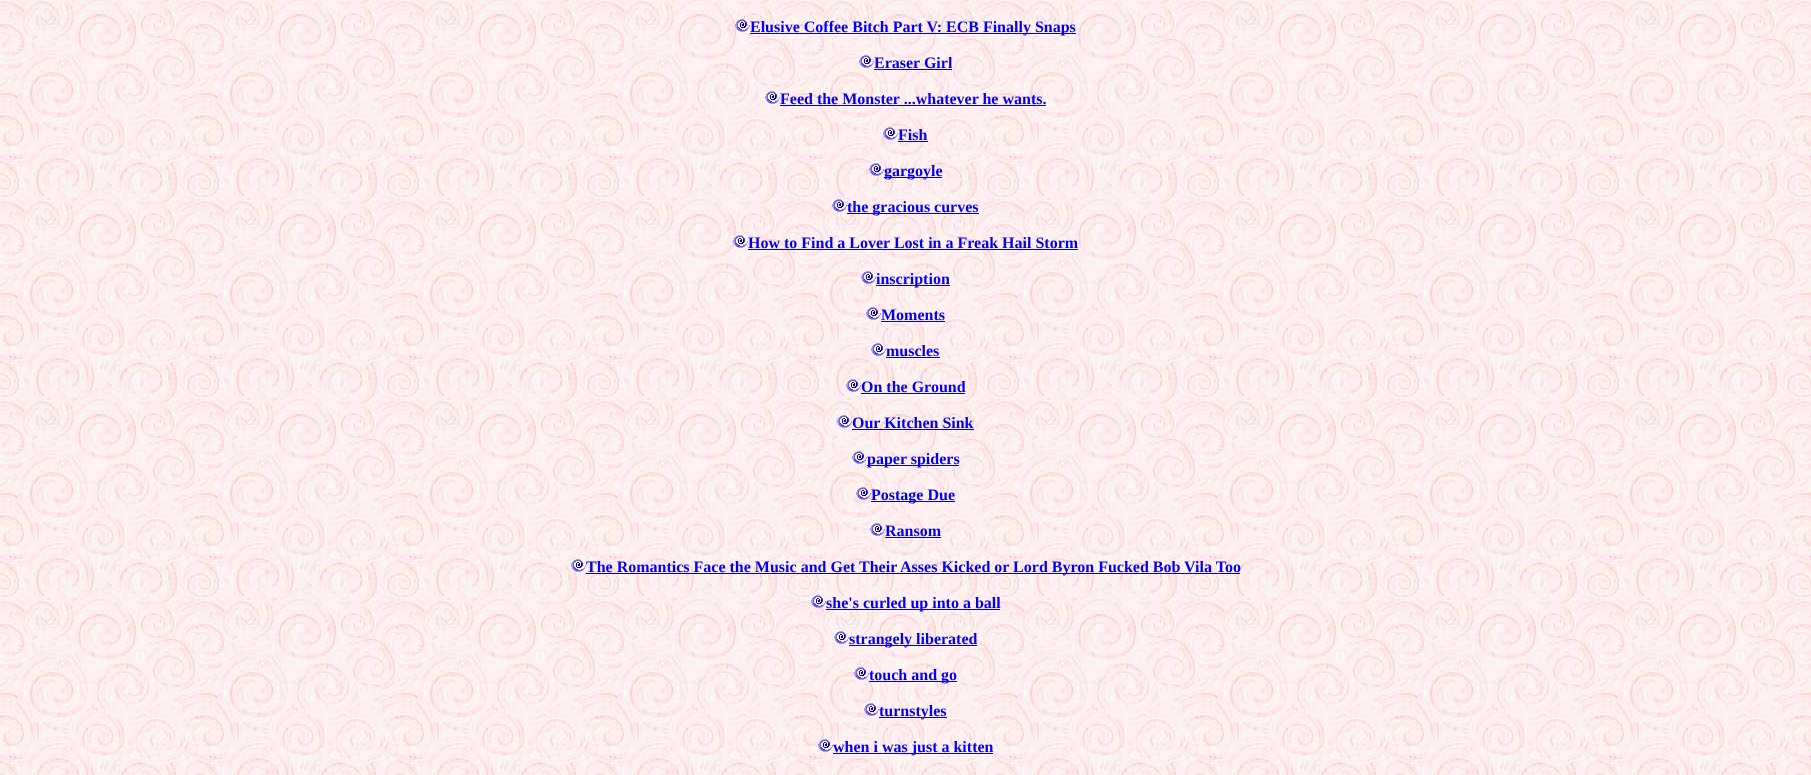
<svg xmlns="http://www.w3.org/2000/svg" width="1811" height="775">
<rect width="100%" height="100%" fill="#fff"/>
<image x="0" y="0" width="1811" height="775" href="media/1.png"/>
<image x="735" y="19" width="15" height="13" href="media/2.png"/>
<rect x="750" y="33" width="326" height="1" fill="#00e"/>
<text x="750" y="32" style="font-family:Liberation Serif;font-size:16px;font-weight:bold;fill:#00e">Elusive Coffee Bitch Part V: ECB Finally Snaps</text>
<image x="859" y="55" width="15" height="13" href="media/3.png"/>
<text x="874" y="68" style="font-family:Liberation Serif;font-size:16px;font-weight:bold;fill:#00e">Eraser Girl</text>
<rect x="874" y="69" width="78" height="1" fill="#00e"/>
<image x="765" y="91" width="15" height="13" href="media/4.png"/>
<text x="780" y="104" style="font-family:Liberation Serif;font-size:16px;font-weight:bold;fill:#00e">Feed the Monster ...whatever he wants.</text>
<rect x="780" y="105" width="266" height="1" fill="#00e"/>
<image x="883" y="127" width="15" height="13" href="media/5.png"/>
<text x="898" y="140" style="font-family:Liberation Serif;font-size:16px;font-weight:bold;fill:#00e">Fish</text>
<rect x="898" y="141" width="30" height="1" fill="#00e"/>
<image x="869" y="163" width="15" height="13" href="media/6.png"/>
<rect x="884" y="177" width="58" height="1" fill="#00e"/>
<text x="884" y="176" style="font-family:Liberation Serif;font-size:16px;font-weight:bold;fill:#00e">gargoyle</text>
<image x="832" y="199" width="15" height="13" href="media/7.png"/>
<rect x="847" y="213" width="132" height="1" fill="#00e"/>
<text x="847" y="212" style="font-family:Liberation Serif;font-size:16px;font-weight:bold;fill:#00e">the gracious curves</text>
<image x="733" y="235" width="15" height="13" href="media/8.png"/>
<text x="748" y="248" style="font-family:Liberation Serif;font-size:16px;font-weight:bold;fill:#00e">How to Find a Lover Lost in a Freak Hail Storm</text>
<rect x="748" y="249" width="330" height="1" fill="#00e"/>
<image x="861" y="271" width="15" height="13" href="media/9.png"/>
<rect x="876" y="285" width="74" height="1" fill="#00e"/>
<text x="876" y="284" style="font-family:Liberation Serif;font-size:16px;font-weight:bold;fill:#00e">inscription</text>
<image x="866" y="307" width="15" height="13" href="media/10.png"/>
<text x="881" y="320" style="font-family:Liberation Serif;font-size:16px;font-weight:bold;fill:#00e">Moments</text>
<rect x="881" y="321" width="64" height="1" fill="#00e"/>
<image x="871" y="343" width="15" height="13" href="media/11.png"/>
<text x="886" y="356" style="font-family:Liberation Serif;font-size:16px;font-weight:bold;fill:#00e">muscles</text>
<rect x="886" y="357" width="54" height="1" fill="#00e"/>
<image x="846" y="379" width="15" height="13" href="media/12.png"/>
<text x="861" y="392" style="font-family:Liberation Serif;font-size:16px;font-weight:bold;fill:#00e">On the Ground</text>
<rect x="861" y="393" width="104" height="1" fill="#00e"/>
<image x="837" y="415" width="15" height="13" href="media/13.png"/>
<text x="852" y="428" style="font-family:Liberation Serif;font-size:16px;font-weight:bold;fill:#00e">Our Kitchen Sink</text>
<rect x="852" y="429" width="122" height="1" fill="#00e"/>
<image x="852" y="451" width="15" height="13" href="media/14.png"/>
<rect x="867" y="465" width="92" height="1" fill="#00e"/>
<text x="867" y="464" style="font-family:Liberation Serif;font-size:16px;font-weight:bold;fill:#00e">paper spiders</text>
<image x="856" y="487" width="15" height="13" href="media/15.png"/>
<rect x="871" y="501" width="84" height="1" fill="#00e"/>
<text x="871" y="500" style="font-family:Liberation Serif;font-size:16px;font-weight:bold;fill:#00e">Postage Due</text>
<image x="870" y="523" width="15" height="13" href="media/16.png"/>
<text x="885" y="536" style="font-family:Liberation Serif;font-size:16px;font-weight:bold;fill:#00e">Ransom</text>
<rect x="885" y="537" width="56" height="1" fill="#00e"/>
<image x="571" y="559" width="15" height="13" href="media/17.png"/>
<rect x="586" y="573" width="654" height="1" fill="#00e"/>
<text x="586" y="572" style="font-family:Liberation Serif;font-size:16px;font-weight:bold;fill:#00e">The Romantics Face the Music and Get Their Asses Kicked or Lord Byron Fucked Bob Vila Too</text>
<image x="811" y="595" width="15" height="13" href="media/18.png"/>
<rect x="826" y="609" width="174" height="1" fill="#00e"/>
<text x="826" y="608" style="font-family:Liberation Serif;font-size:16px;font-weight:bold;fill:#00e">she's curled up into a ball</text>
<image x="834" y="631" width="15" height="13" href="media/19.png"/>
<rect x="849" y="645" width="128" height="1" fill="#00e"/>
<text x="849" y="644" style="font-family:Liberation Serif;font-size:16px;font-weight:bold;fill:#00e">strangely liberated</text>
<image x="854" y="667" width="15" height="13" href="media/20.png"/>
<rect x="869" y="681" width="88" height="1" fill="#00e"/>
<text x="869" y="680" style="font-family:Liberation Serif;font-size:16px;font-weight:bold;fill:#00e">touch and go</text>
<image x="864" y="703" width="15" height="13" href="media/21.png"/>
<rect x="879" y="717" width="68" height="1" fill="#00e"/>
<text x="879" y="716" style="font-family:Liberation Serif;font-size:16px;font-weight:bold;fill:#00e">turnstyles</text>
<image x="818" y="739" width="15" height="13" href="media/22.png"/>
<rect x="833" y="753" width="160" height="1" fill="#00e"/>
<text x="833" y="752" style="font-family:Liberation Serif;font-size:16px;font-weight:bold;fill:#00e">when i was just a kitten</text>
</svg>
